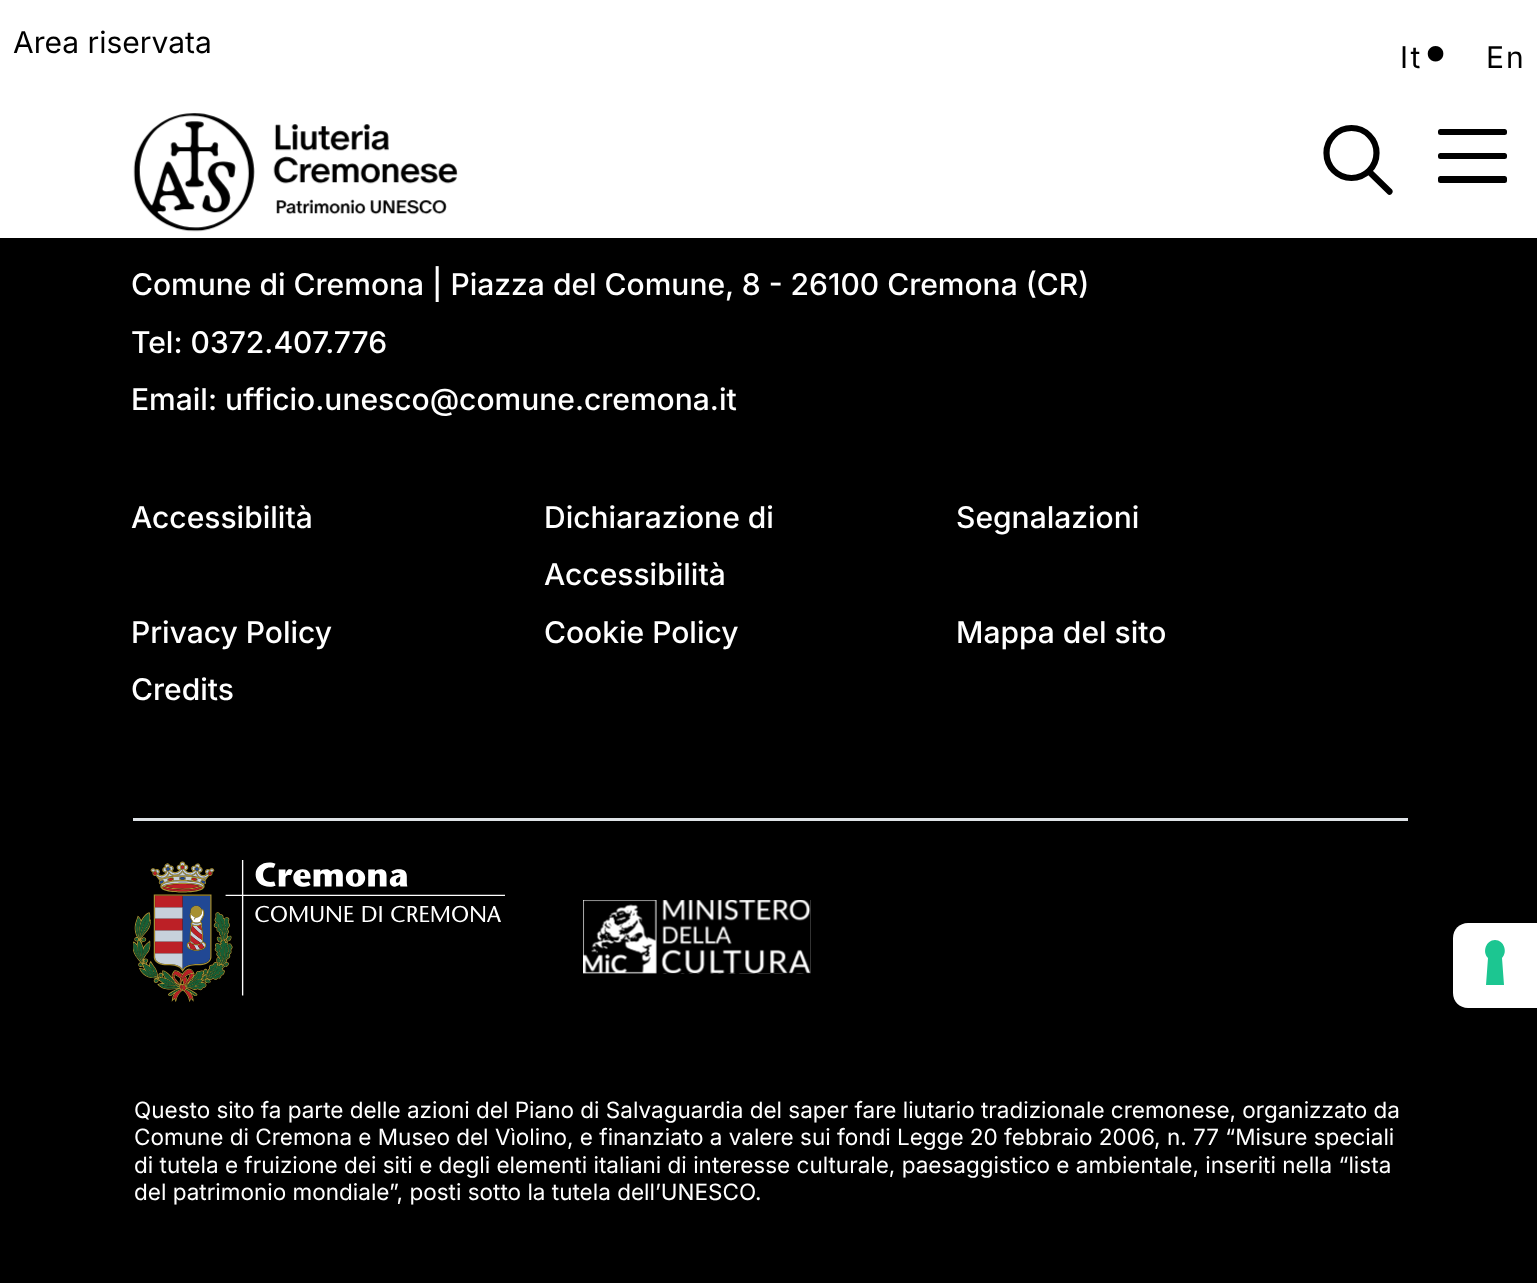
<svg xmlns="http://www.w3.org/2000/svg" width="1537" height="1283">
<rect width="100%" height="100%" fill="#000"/>
<rect width="1537" height="238" fill="#fff"/>
<text x="13" y="53" style="font-family:Inter;font-size:30px;fill:#000">Area riservata</text>
<text x="1400" y="68" style="font-family:Inter;font-size:30px;letter-spacing:2px;fill:#000">It</text>
<text x="1422" y="68" style="font-family:'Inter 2';font-size:50px;fill:#000">•</text>
<text x="1486" y="68" style="font-family:Inter;font-size:30px;letter-spacing:2px;fill:#000">En</text>
<image x="133" y="113" width="325" height="119" href="media/1.png"/>
<path d="M1387.5 194c2.5 3 7-1.5 4.5-4.5zm-20.5-20l20.5 20l4.5-4.5l-20.5-20z" fill="#000"/>
<circle cx="1351.5" cy="153" r="25" fill="none" stroke="#000" stroke-width="6.2"/>
<rect x="1438" y="129" width="69" height="6" rx="2.5" fill="#000"/>
<rect x="1438" y="153" width="69" height="6" rx="2.5" fill="#000"/>
<rect x="1438" y="176" width="69" height="7" rx="2.5" fill="#000"/>
<rect x="133" y="818" width="1275" height="3" fill="#dee2e6"/>
<text x="131" y="295" style="font-family:Inter;font-size:30px;font-weight:500;fill:#fff">Comune di Cremona | Piazza del Comune, 8 - 26100 Cremona (CR)</text>
<text x="131" y="353" style="font-family:Inter;font-size:30px;font-weight:500;fill:#fff">Tel: 0372.407.776</text>
<text x="131" y="410" style="font-family:Inter;font-size:30px;font-weight:500;fill:#fff">Email: ufficio.unesco@comune.cremona.it</text>
<text x="131" y="528" style="font-family:Inter;font-size:30px;font-weight:500;fill:#fff">Accessibilità</text>
<text x="544" y="528" style="font-family:Inter;font-size:30px;font-weight:500;fill:#fff">Dichiarazione di</text>
<text x="544" y="585" style="font-family:Inter;font-size:30px;font-weight:500;fill:#fff">Accessibilità</text>
<text x="956" y="528" style="font-family:Inter;font-size:30px;font-weight:500;fill:#fff">Segnalazioni</text>
<text x="131" y="643" style="font-family:Inter;font-size:30px;font-weight:500;fill:#fff">Privacy Policy</text>
<text x="544" y="643" style="font-family:Inter;font-size:30px;font-weight:500;fill:#fff">Cookie Policy</text>
<text x="956" y="643" style="font-family:Inter;font-size:30px;font-weight:500;fill:#fff">Mappa del sito</text>
<text x="131" y="700" style="font-family:Inter;font-size:30px;font-weight:500;fill:#fff">Credits</text>
<image x="133" y="860" width="372" height="142" href="media/2.png"/>
<image x="583" y="900" width="228" height="74" href="media/3.png"/>
<text x="134" y="1118" style="font-family:Inter;font-size:22.5px;fill:#fff">Questo sito fa parte delle azioni del Piano di Salvaguardia del saper fare liutario tradizionale cremonese, organizzato da</text>
<text x="134" y="1145" style="font-family:Inter;font-size:22.5px;fill:#fff">Comune di Cremona e Museo del Vìolino, e finanziato a valere sui fondi Legge 20 febbraio 2006, n. 77 “Misure speciali</text>
<text x="134" y="1173" style="font-family:Inter;font-size:22.5px;fill:#fff">di tutela e fruizione dei siti e degli elementi italiani di interesse culturale, paesaggistico e ambientale, inseriti nella “lista</text>
<text x="134" y="1200" style="font-family:Inter;font-size:22.5px;fill:#fff">del patrimonio mondiale”, posti sotto la tutela dell’UNESCO.</text>
<path d="M1468 923h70v85h-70c-8.5 0-15-6.5-15-15v-55c0-8.5 6.5-15 15-15z" fill="#fff"/>
<path d="M1495 940c9 0 13 12 7 18l2 27h-18l2-27c-6-6-2-18 7-18z" fill="#1cc691" fill-rule="evenodd"/>
</svg>
